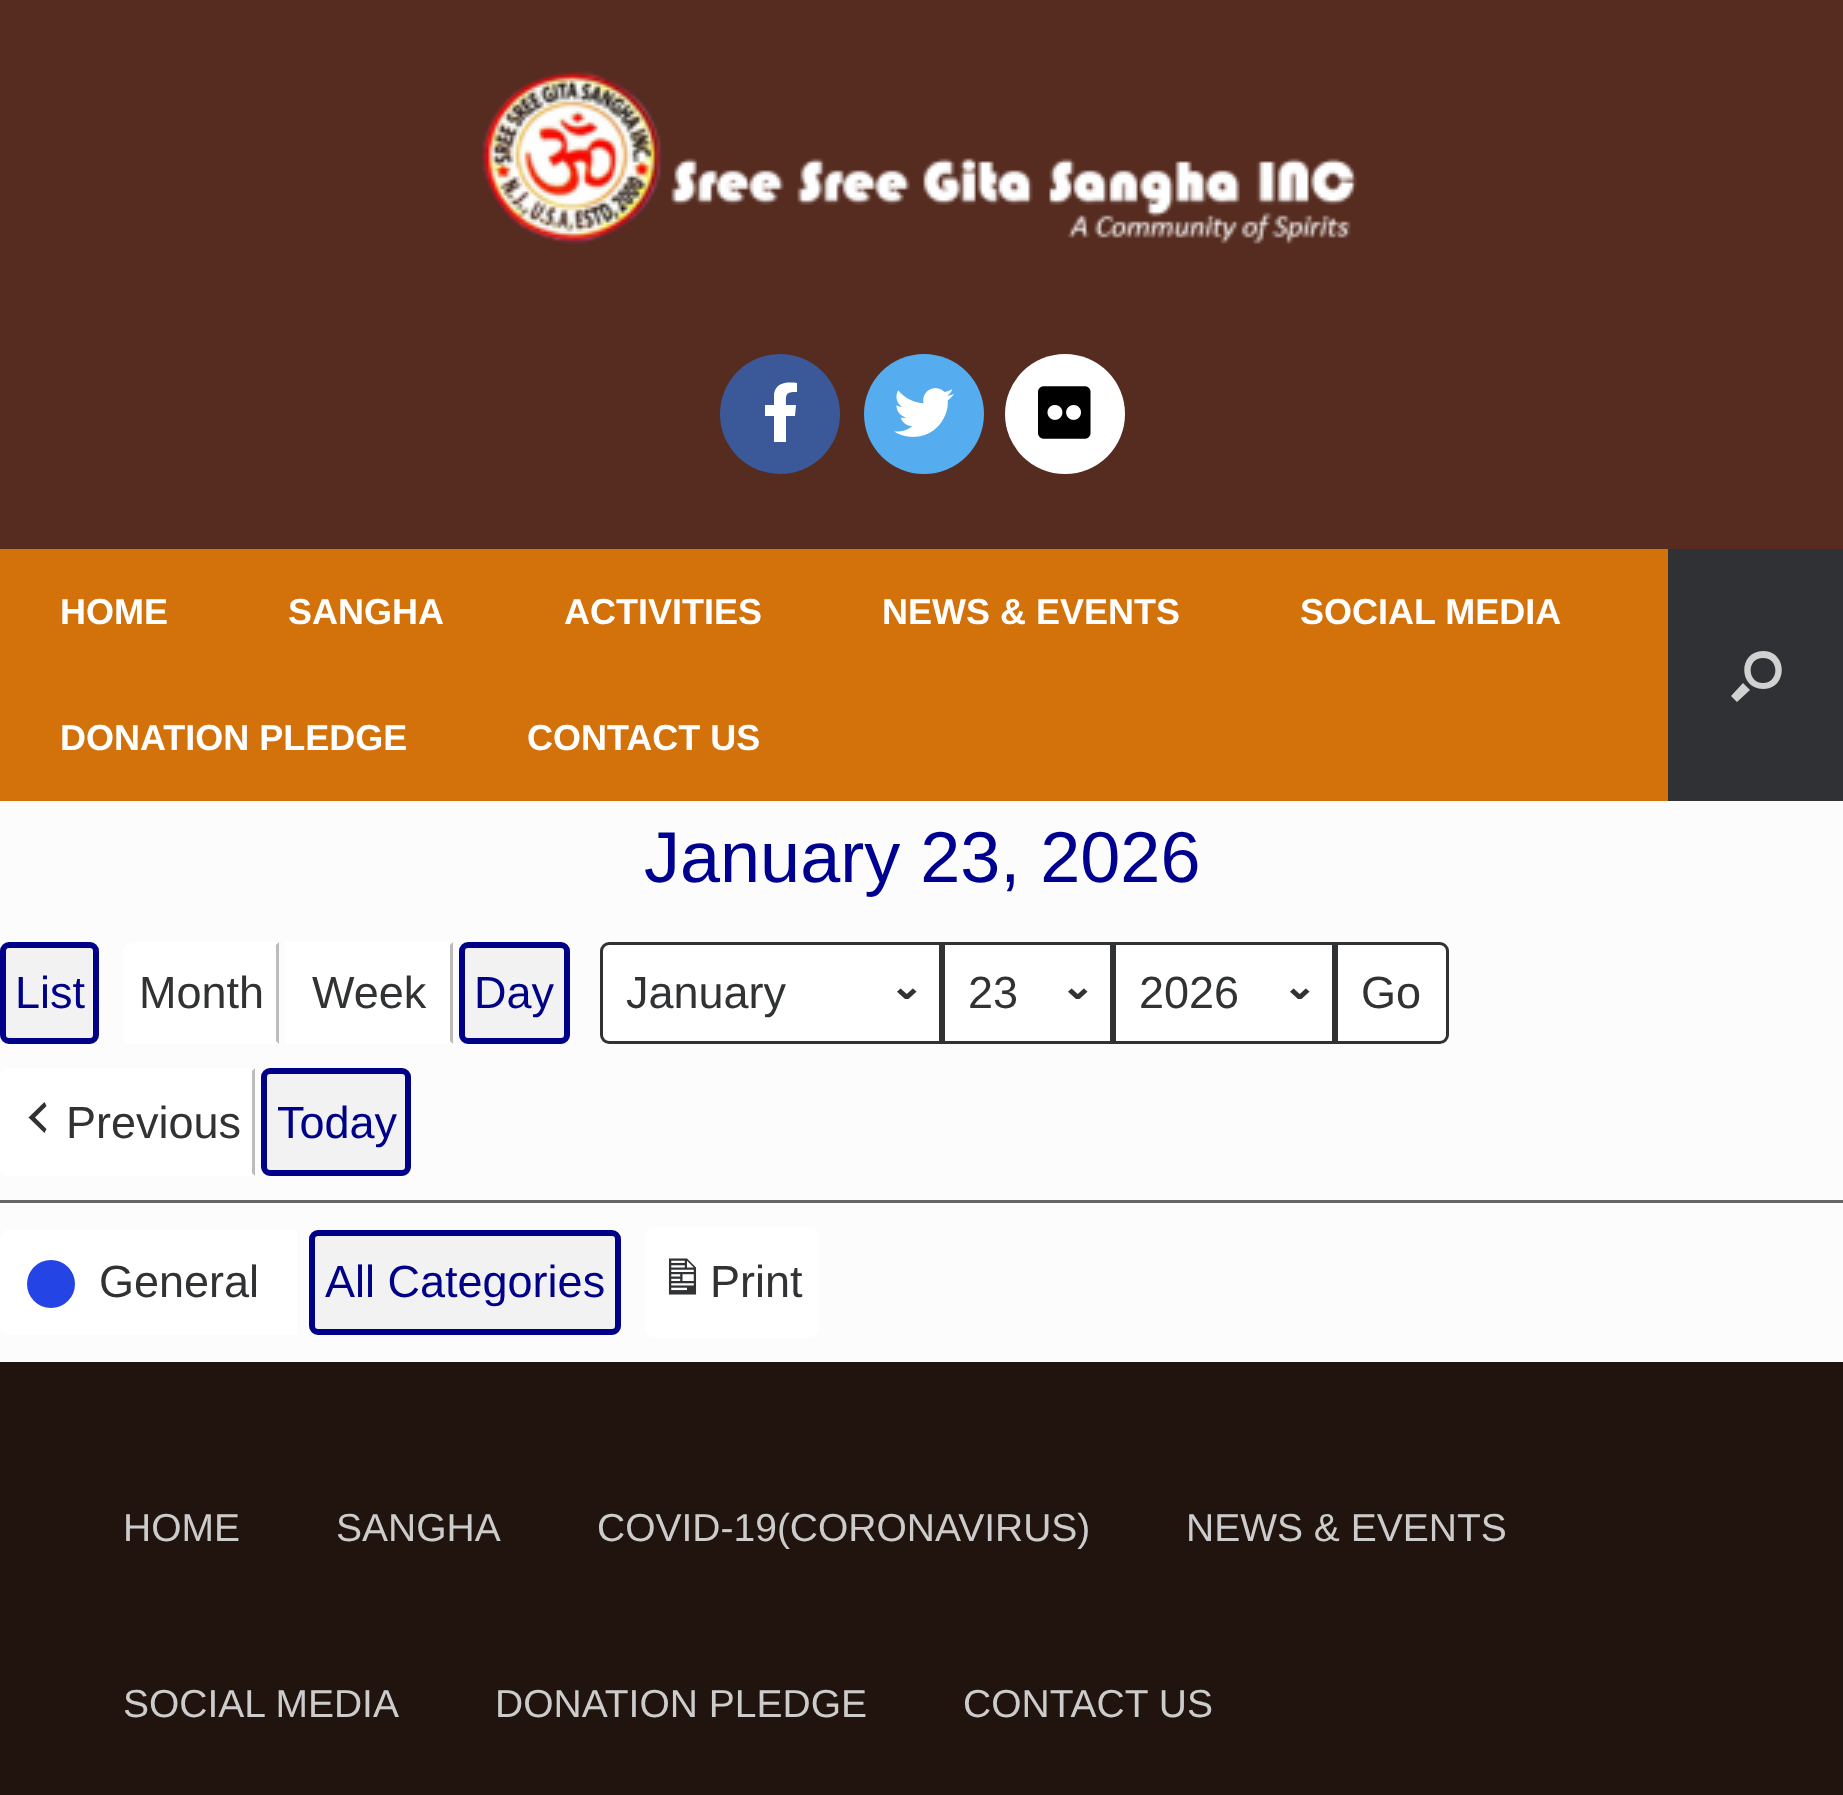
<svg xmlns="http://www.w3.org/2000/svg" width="1843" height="1795">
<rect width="100%" height="100%" fill="#562c20"/>
<image x="482" y="71" width="875" height="173" href="media/1.png"/>
<circle cx="780" cy="414" r="60" fill="#3b5998"/>
<path d="M795 416h-9v26h-12v-26h-9v-11h9v-11c2-12 13-12 23-11v9c-12 0-11 2-11 13h10z" fill="#fff"/>
<circle cx="924" cy="414" r="60" fill="#55acee"/>
<image x="894" y="388" width="60" height="49" href="media/2.png"/>
<circle cx="1065" cy="414" r="60" fill="#fff"/>
<image x="1038" y="386" width="53" height="53" href="media/3.png"/>
<rect y="549" width="1668" height="252" fill="#d3710a"/>
<text x="60" y="624" style="font-family:Liberation Sans;font-size:36px;font-weight:bold;fill:#fff">HOME</text>
<text x="288" y="624" style="font-family:Liberation Sans;font-size:36px;font-weight:bold;fill:#fff">SANGHA</text>
<text x="564" y="624" style="font-family:Liberation Sans;font-size:36px;font-weight:bold;fill:#fff">ACTIVITIES</text>
<text x="882" y="624" style="font-family:Liberation Sans;font-size:36px;font-weight:bold;fill:#fff">NEWS &amp; EVENTS</text>
<text x="1300" y="624" style="font-family:Liberation Sans;font-size:36px;font-weight:bold;fill:#fff">SOCIAL MEDIA</text>
<text x="60" y="750" style="font-family:Liberation Sans;font-size:36px;font-weight:bold;fill:#fff">DONATION PLEDGE</text>
<text x="527" y="750" style="font-family:Liberation Sans;font-size:36px;font-weight:bold;fill:#fff">CONTACT US</text>
<rect x="1668" y="549" width="175" height="252" fill="#303134"/>
<path d="M1763 658c17 0 16 25 0 25c-16 0-17-25 0-25zm0-7c-25 0-25 38 0 38c25 0 25-38 0-38zm-20 32l7 7l-13 12l-6-6z" fill="#d1d1d1"/>
<rect y="801" width="1843" height="561" fill="#fcfcfc"/>
<text x="644" y="882" style="font-family:Liberation Sans;font-size:72px;fill:#000090">January 23, 2026</text>
<rect y="942" width="99" height="102" rx="9" fill="#f2f2f2"/>
<rect x="3" y="945" width="93" height="96" rx="6" fill="none" stroke="#000089" stroke-width="6"/>
<text x="15" y="1008" style="font-family:Liberation Sans;font-size:45px;fill:#000089">List</text>
<path d="M132 942h147v102h-147c-5 0-9-4-9-9v-84c0-5 4-9 9-9z" fill="#fff"/>
<path d="M279 942l-3 3v96l3 3z" fill="#bbb"/>
<text x="139" y="1008" style="font-family:Liberation Sans;font-size:45px;fill:#313233">Month</text>
<rect x="285" y="942" width="168" height="102" fill="#fff"/>
<path d="M453 942v102l-3-3v-96z" fill="#bbb"/>
<text x="312" y="1008" style="font-family:Liberation Sans;font-size:45px;fill:#313233">Week</text>
<rect x="459" y="942" width="111" height="102" rx="9" fill="#f2f2f2"/>
<rect x="462" y="945" width="105" height="96" rx="6" fill="none" stroke="#000089" stroke-width="6"/>
<text x="474" y="1008" style="font-family:Liberation Sans;font-size:45px;fill:#000089">Day</text>
<path d="M609 942h333v102h-333c-5 0-9-4-9-9v-84c0-5 4-9 9-9z" fill="#fff"/>
<image x="897" y="988" width="20" height="11" href="media/4.png"/>
<path d="M609 943.5h331.5v99h-331.5c-4 0-7.5-3.5-7.5-7.5v-84c0-4 3.5-7.5 7.5-7.5z" fill="none" stroke="#313233" stroke-width="3"/>
<text x="626" y="1008" style="font-family:Liberation Sans;font-size:45px;fill:#313233">January</text>
<rect x="945" y="945" width="165" height="96" fill="#fff"/>
<image x="1068" y="988" width="20" height="11" href="media/4.png"/>
<rect x="943.5" y="943.5" width="168" height="99" fill="none" stroke="#313233" stroke-width="3"/>
<text x="968" y="1008" style="font-family:Liberation Sans;font-size:45px;fill:#313233">23</text>
<rect x="1116" y="945" width="216" height="96" fill="#fff"/>
<image x="1290" y="988" width="20" height="11" href="media/4.png"/>
<rect x="1114.5" y="943.5" width="219" height="99" fill="none" stroke="#313233" stroke-width="3"/>
<text x="1139" y="1008" style="font-family:Liberation Sans;font-size:45px;fill:#313233">2026</text>
<path d="M1336.5 943.5h103.5c4 0 7.5 3.5 7.5 7.5v84c0 4-3.5 7.5-7.5 7.5h-103.5z" fill="#fff" stroke="#313233" stroke-width="3"/>
<text x="1361" y="1008" style="font-family:Liberation Sans;font-size:45px;fill:#313233">Go</text>
<path d="M9 1068h246v108h-246c-5 0-9-4-9-9v-90c0-5 4-9 9-9z" fill="#fff"/>
<path d="M255 1068l-3 3v102l3 3z" fill="#bbb"/>
<path d="M46.5 1106l-11.5 11.5l11.5 11.5l-2 4l-16-15.5l16-15.5z" fill="#313233"/>
<text x="66" y="1138" style="font-family:Liberation Sans;font-size:45px;fill:#313233">Previous</text>
<rect x="261" y="1068" width="150" height="108" rx="9" fill="#f2f2f2"/>
<rect x="264" y="1071" width="144" height="102" rx="6" fill="none" stroke="#000089" stroke-width="6"/>
<text x="277" y="1138" style="font-family:Liberation Sans;font-size:45px;fill:#000089">Today</text>
<rect y="1200" width="1843" height="3" fill="#666"/>
<path d="M9 1230h288v105h-288c-5 0-9-4-9-9v-87c0-5 4-9 9-9z" fill="#fff"/>
<circle cx="51" cy="1284" r="24" fill="#2444e5"/>
<text x="99" y="1297" style="font-family:Liberation Sans;font-size:45px;fill:#313233">General</text>
<rect x="309" y="1230" width="312" height="105" rx="9" fill="#f2f2f2"/>
<rect x="312" y="1233" width="306" height="99" rx="6" fill="none" stroke="#000089" stroke-width="6"/>
<text x="325" y="1297" style="font-family:Liberation Sans;font-size:45px;fill:#000089">All Categories</text>
<rect x="645" y="1227" width="174" height="111" rx="9" fill="#fff"/>
<image x="668" y="1258" width="29" height="37" href="media/5.png"/>
<text x="710" y="1297" style="font-family:Liberation Sans;font-size:45px;fill:#313233">Print</text>
<rect y="1362" width="1843" height="433" fill="#21140e"/>
<text x="123" y="1541" style="font-family:Liberation Sans;font-size:39px;fill:#ccc">HOME</text>
<text x="336" y="1541" style="font-family:Liberation Sans;font-size:39px;fill:#ccc">SANGHA</text>
<text x="597" y="1541" style="font-family:Liberation Sans;font-size:39px;fill:#ccc">COVID-19(CORONAVIRUS)</text>
<text x="1186" y="1541" style="font-family:Liberation Sans;font-size:39px;fill:#ccc">NEWS &amp; EVENTS</text>
<text x="123" y="1717" style="font-family:Liberation Sans;font-size:39px;fill:#ccc">SOCIAL MEDIA</text>
<text x="495" y="1717" style="font-family:Liberation Sans;font-size:39px;fill:#ccc">DONATION PLEDGE</text>
<text x="963" y="1717" style="font-family:Liberation Sans;font-size:39px;fill:#ccc">CONTACT US</text>
</svg>
